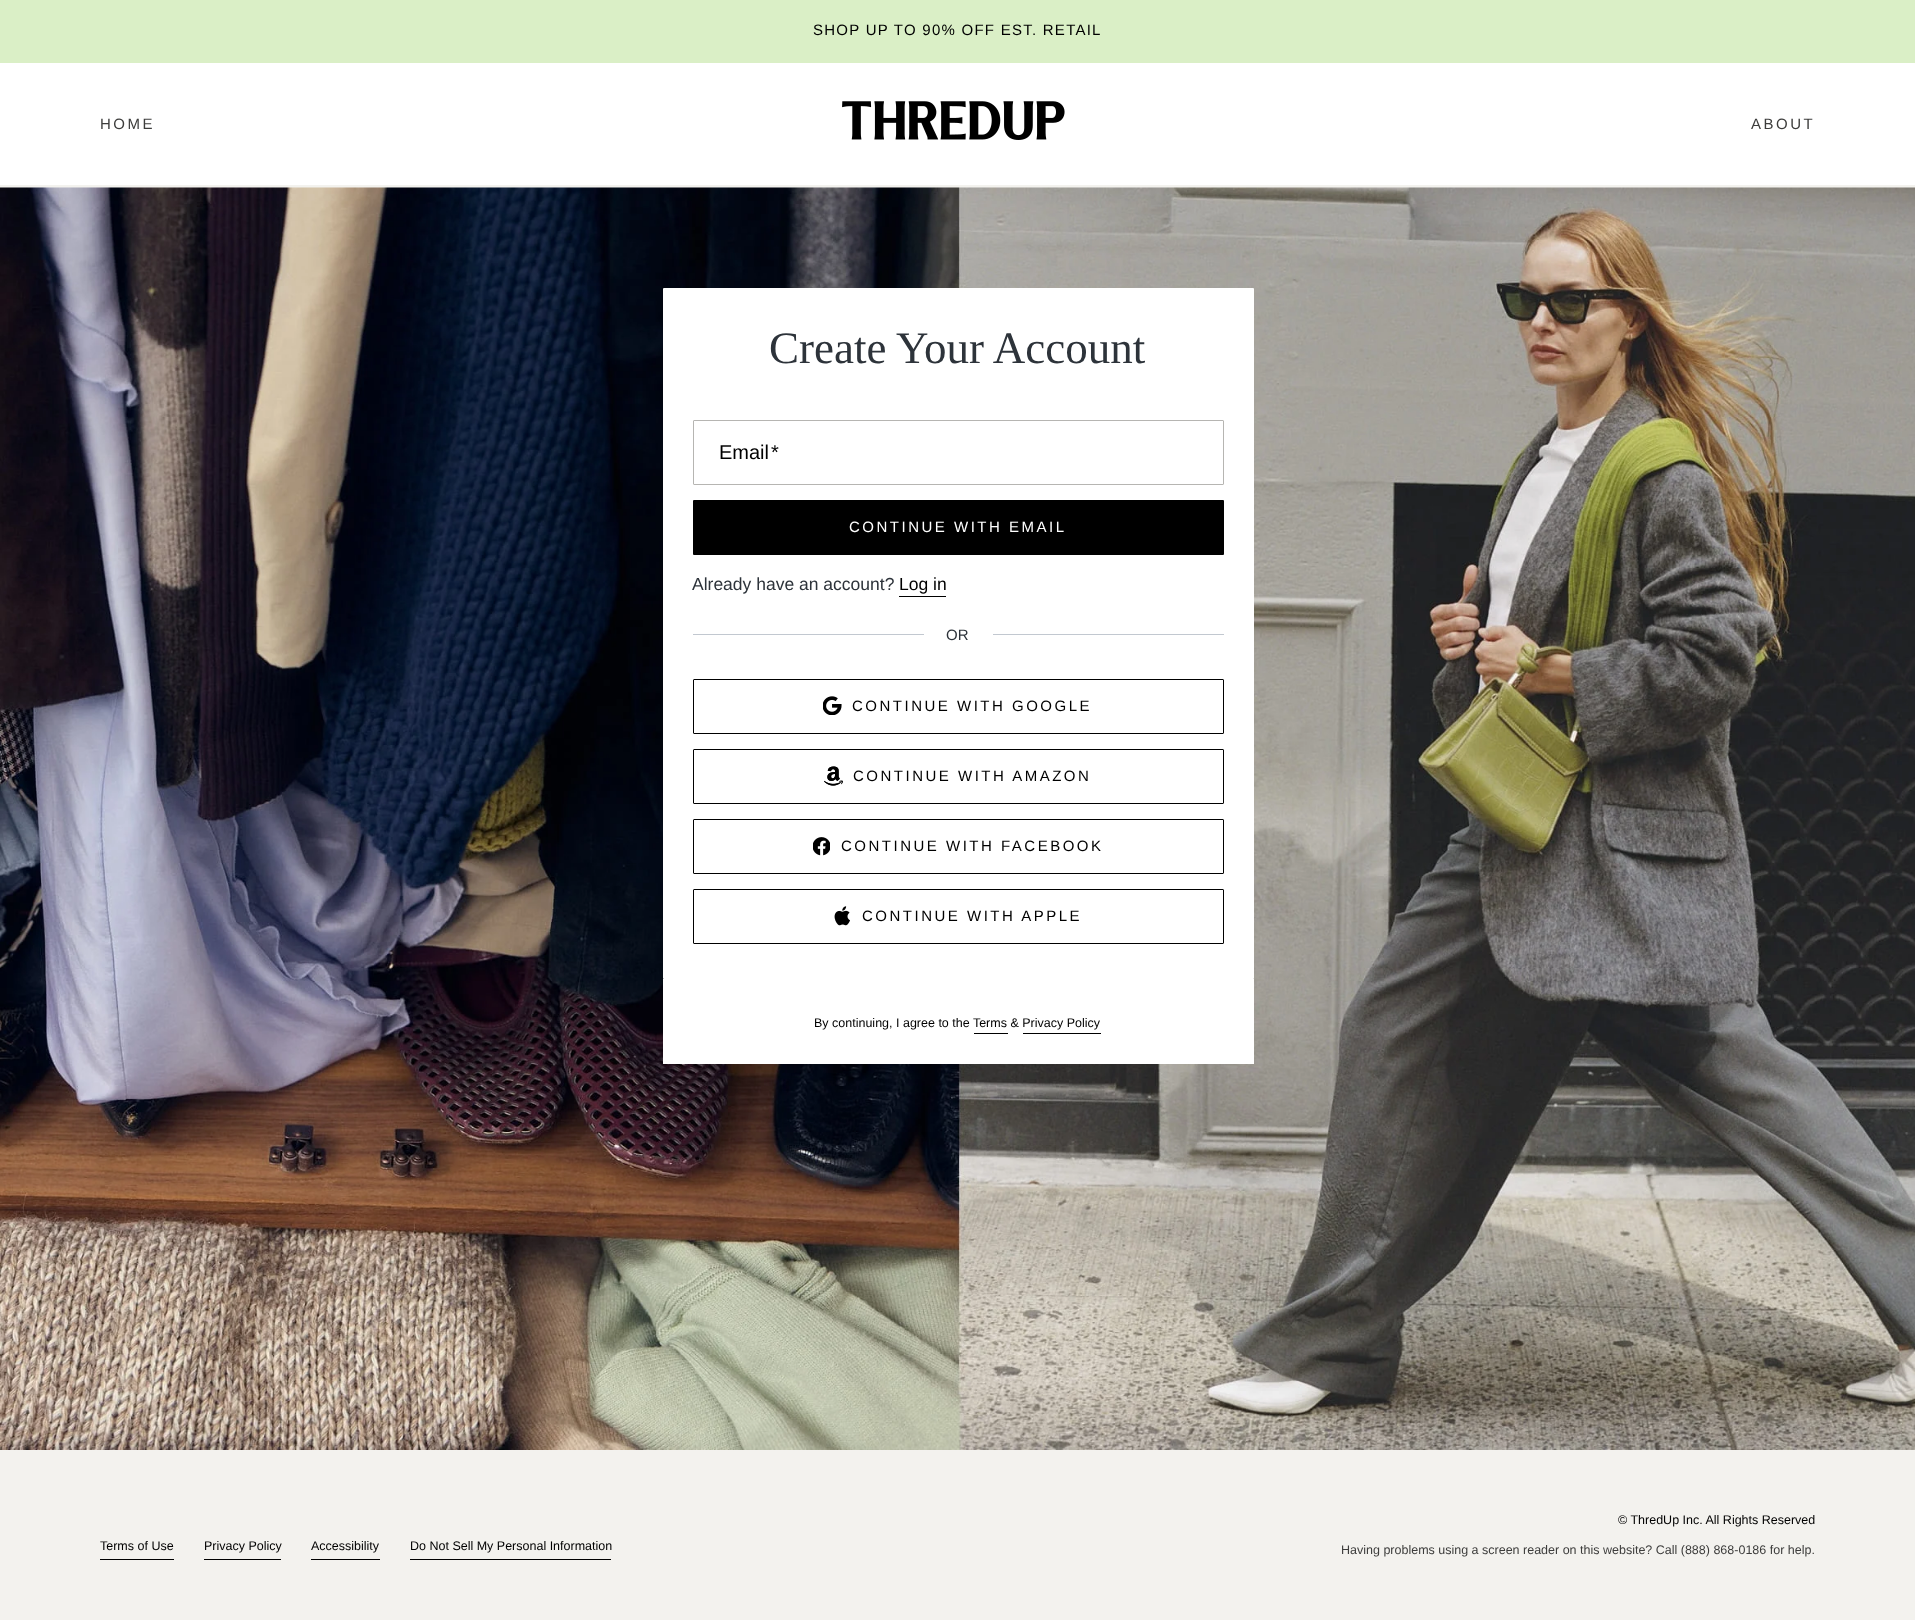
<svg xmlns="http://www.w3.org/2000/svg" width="1915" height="1620">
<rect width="100%" height="100%" fill="#f3f2ee"/>
<rect width="1915" height="63" fill="#daefc6"/>
<text x="813" y="35" style="font-family:Liberation Sans;font-size:15px;letter-spacing:1.25px;fill:#000">SHOP UP TO 90% OFF EST. RETAIL</text>
<rect y="63" width="1915" height="122" fill="#fff"/>
<text x="100" y="129" style="font-family:Liberation Sans;font-size:15px;letter-spacing:2.5px;fill:#3d3d3c">HOME</text>
<image x="842" y="101" width="223" height="39" href="media/1.png"/>
<text x="1751" y="129" style="font-family:Liberation Sans;font-size:15px;letter-spacing:2.5px;fill:#3d3d3c">ABOUT</text>
<image x="0" y="185" width="1915" height="1265" href="media/2.png"/>
<rect x="663" y="288" width="591" height="691" rx="1" fill="#fff"/>
<text x="769" y="363" style="font-family:Liberation Serif;font-size:45px;fill:#2d333a">Create Your Account</text>
<rect x="693.5" y="420.5" width="530" height="64" rx="0.5" fill="none" stroke="#b6b5b2"/>
<text x="719" y="459" style="font-family:Liberation Sans;font-size:20px;fill:#000">Email</text>
<text x="771" y="459" style="font-family:Liberation Sans;font-size:20px;fill:#000">*</text>
<rect x="693" y="500" width="531" height="55" rx="1" fill="#000"/>
<text x="849" y="532" style="font-family:Liberation Sans;font-size:15px;letter-spacing:2.5px;fill:#fff">CONTINUE WITH EMAIL</text>
<text x="692" y="590" style="font-family:Liberation Sans;font-size:17.5px;fill:#2d333a">Already have an account?</text>
<text x="899" y="590" style="font-family:Liberation Sans;font-size:17.5px;fill:#000">Log in</text>
<rect x="899" y="596" width="47" height="1" fill="#000"/>
<rect x="693" y="634" width="231" height="1" fill="#c2c8d0"/>
<text x="946" y="640" style="font-family:Liberation Sans;font-size:15px;fill:#2d333a">OR</text>
<rect x="993" y="634" width="231" height="1" fill="#c2c8d0"/>
<rect x="693.5" y="679.5" width="530" height="54" rx="0.5" fill="none" stroke="#000"/>
<image x="823" y="696" width="19" height="19" href="media/3.png"/>
<text x="852" y="711" style="font-family:Liberation Sans;font-size:15px;letter-spacing:2.5px;fill:#000">CONTINUE WITH GOOGLE</text>
<rect x="693.5" y="749.5" width="530" height="54" rx="0.5" fill="none" stroke="#000"/>
<image x="824" y="766" width="19" height="20" href="media/4.png"/>
<text x="853" y="781" style="font-family:Liberation Sans;font-size:15px;letter-spacing:2.5px;fill:#000">CONTINUE WITH AMAZON</text>
<rect x="693.5" y="819.5" width="530" height="54" rx="0.5" fill="none" stroke="#000"/>
<image x="813" y="837" width="17" height="19" href="media/5.png"/>
<text x="841" y="851" style="font-family:Liberation Sans;font-size:15px;letter-spacing:2.5px;fill:#000">CONTINUE WITH FACEBOOK</text>
<rect x="693.5" y="889.5" width="530" height="54" rx="0.5" fill="none" stroke="#000"/>
<image x="834" y="906" width="16" height="20" href="media/6.png"/>
<text x="862" y="921" style="font-family:Liberation Sans;font-size:15px;letter-spacing:2.5px;fill:#000">CONTINUE WITH APPLE</text>
<rect x="663" y="979" width="591" height="85" fill="#fff"/>
<text x="814" y="1027" style="font-family:Liberation Sans;font-size:12.5px;fill:#000">By continuing, I agree to the Terms &amp; Privacy Policy</text>
<rect x="974" y="1033" width="34" height="1" fill="#000"/>
<rect x="1023" y="1033" width="78" height="1" fill="#000"/>
<rect x="100" y="1559" width="74" height="1" fill="#000"/>
<text x="100" y="1550" style="font-family:Liberation Sans;font-size:12.5px;fill:#000">Terms of Use</text>
<rect x="204" y="1559" width="77" height="1" fill="#000"/>
<text x="204" y="1550" style="font-family:Liberation Sans;font-size:12.5px;fill:#000">Privacy Policy</text>
<rect x="311" y="1559" width="69" height="1" fill="#000"/>
<text x="311" y="1550" style="font-family:Liberation Sans;font-size:12.5px;fill:#000">Accessibility</text>
<rect x="410" y="1559" width="201" height="1" fill="#000"/>
<text x="410" y="1550" style="font-family:Liberation Sans;font-size:12.5px;fill:#000">Do Not Sell My Personal Information</text>
<text x="1618" y="1524" style="font-family:Liberation Sans;font-size:12.5px;fill:#000">© ThredUp Inc. All Rights Reserved</text>
<text x="1341" y="1554" style="font-family:Liberation Sans;font-size:12.5px;fill:#3d3d3c">Having problems using a screen reader on this website? Call (888) 868-0186 for help.</text>
</svg>
